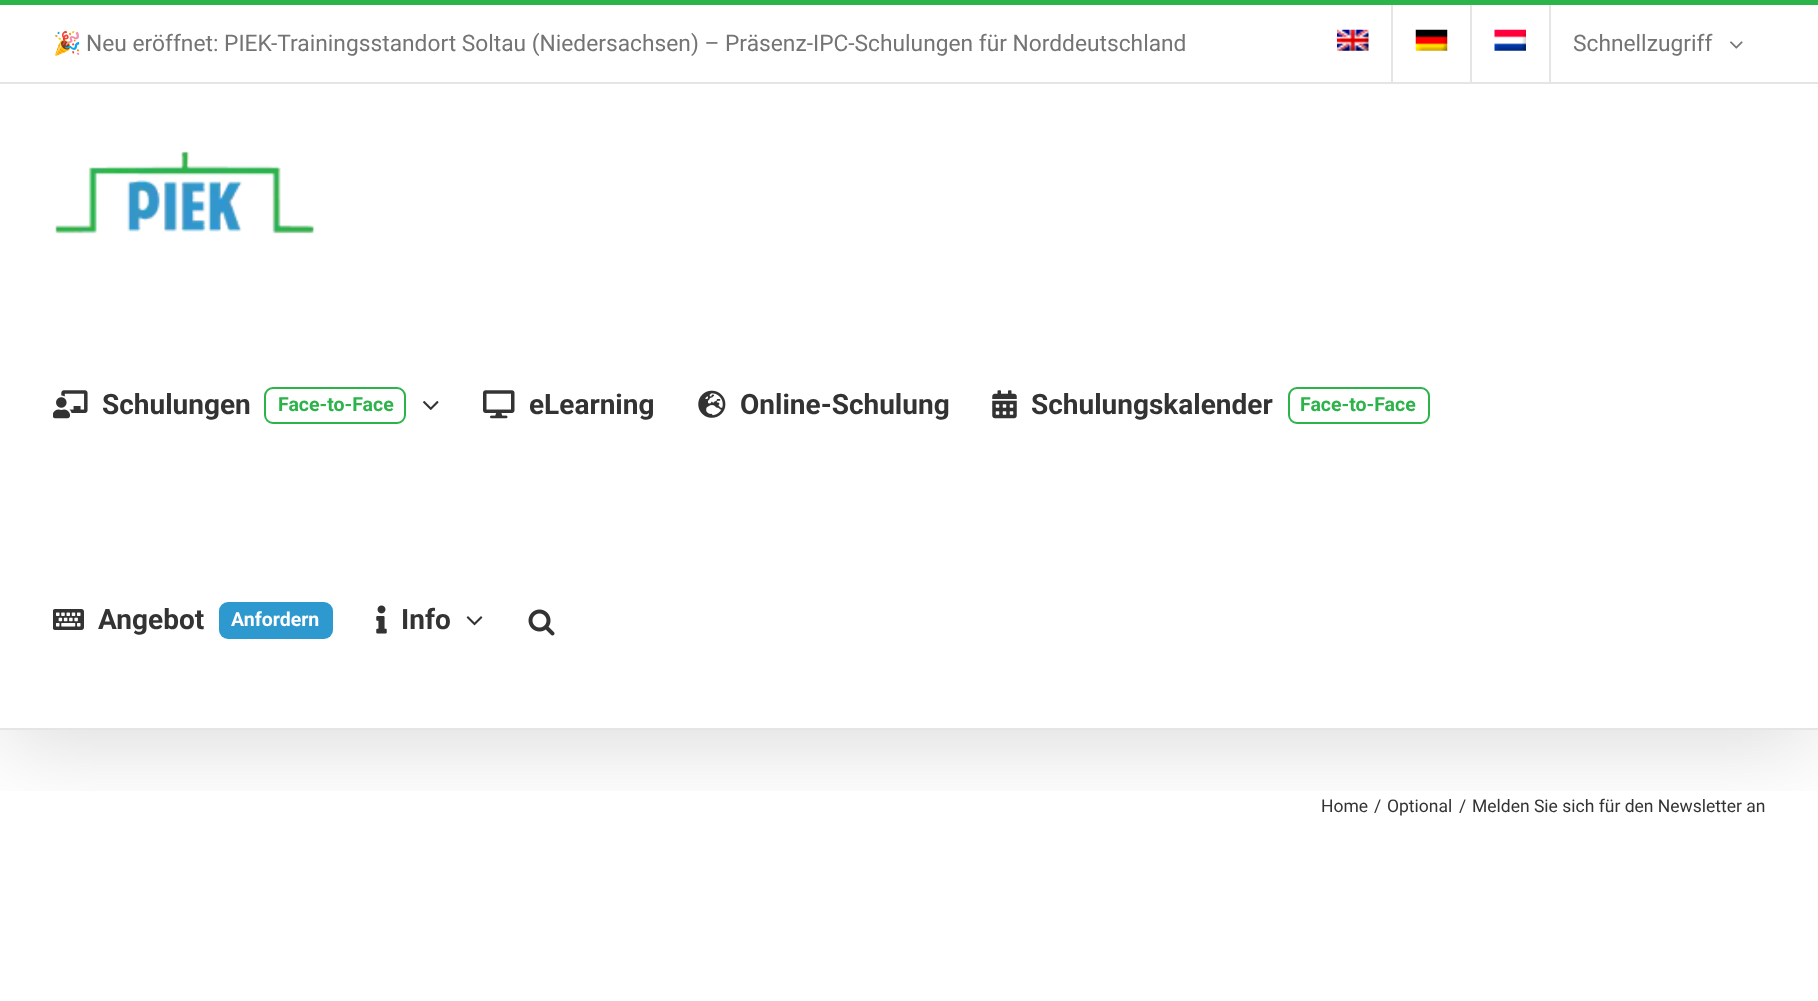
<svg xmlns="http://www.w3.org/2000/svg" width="1818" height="1001">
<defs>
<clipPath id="clip1"><rect x="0" y="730" width="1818" height="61"/></clipPath>
</defs>
<rect width="100%" height="100%" fill="#fff"/>
<g clip-path="url(#clip1)">
<rect x="4" y="21" width="1811" height="723" fill="#00000024" filter="blur(44px)"/>
</g>
<rect width="1818" height="5" fill="#2cb34a"/>
<rect y="82" width="1818" height="2" fill="#e5e5e5"/>
<text x="53" y="51" style="font-family:Noto Color Emoji;font-size:22.75px;fill:#747474">🎉</text>
<text x="86" y="51" style="font-family:Roboto;font-size:22.75px;fill:#747474">Neu eröffnet: PIEK-Trainingsstandort Soltau (Niedersachsen) – Präsenz-IPC-Schulungen für Norddeutschland</text>
<image x="1337" y="29" width="32" height="22" href="media/1.png"/>
<rect x="1391" y="5" width="2" height="77" fill="#e5e5e5"/>
<image x="1415" y="29" width="33" height="22" href="media/2.png"/>
<rect x="1470" y="5" width="2" height="77" fill="#e5e5e5"/>
<image x="1494" y="29" width="32" height="22" href="media/3.png"/>
<rect x="1549" y="5" width="2" height="77" fill="#e5e5e5"/>
<text x="1573" y="51" style="font-family:Roboto;font-size:22.75px;fill:#747474">Schnellzugriff</text>
<image x="1730" y="41" width="13" height="8" href="media/4.png"/>
<rect y="728" width="1818" height="2" fill="#e5e5e5"/>
<image x="55" y="151" width="259" height="83" href="media/5.png"/>
<image x="53" y="390" width="35" height="29" href="media/6.png"/>
<text x="102" y="414" style="font-family:Roboto;font-size:28px;font-weight:bold;fill:#333">Schulungen</text>
<rect x="265" y="388" width="140" height="35" rx="8" fill="none" stroke="#2cb34a" stroke-width="2"/>
<text x="278" y="411" style="font-family:Roboto;font-size:19.5px;font-weight:bold;fill:#2cb34a">Face-to-Face</text>
<image x="423" y="401" width="16" height="9" href="media/7.png"/>
<image x="483" y="390" width="32" height="29" href="media/8.png"/>
<text x="529" y="414" style="font-family:Roboto;font-size:28px;font-weight:bold;fill:#333">eLearning</text>
<image x="698" y="390" width="28" height="28" href="media/9.png"/>
<text x="740" y="414" style="font-family:Roboto;font-size:28px;font-weight:bold;fill:#333">Online-Schulung</text>
<image x="992" y="390" width="25" height="29" href="media/10.png"/>
<text x="1031" y="414" style="font-family:Roboto;font-size:28px;font-weight:bold;fill:#333">Schulungskalender</text>
<rect x="1289" y="388" width="140" height="35" rx="8" fill="none" stroke="#2cb34a" stroke-width="2"/>
<text x="1300" y="411" style="font-family:Roboto;font-size:19.5px;font-weight:bold;fill:#2cb34a">Face-to-Face</text>
<image x="53" y="609" width="31" height="21" href="media/11.png"/>
<text x="98" y="629" style="font-family:Roboto;font-size:28px;font-weight:bold;fill:#333">Angebot</text>
<rect x="219" y="602" width="114" height="37" rx="9" fill="#2e99cf"/>
<text x="231" y="626" style="font-family:Roboto;font-size:19.5px;font-weight:bold;fill:#fff">Anfordern</text>
<image x="376" y="605" width="11" height="29" href="media/12.png"/>
<text x="401" y="629" style="font-family:Roboto;font-size:28px;font-weight:bold;fill:#333">Info</text>
<image x="466" y="616" width="17" height="10" href="media/13.png"/>
<image x="528" y="609" width="27" height="27" href="media/14.png"/>
<text x="1321" y="812" style="font-family:Roboto;font-size:17.5px;fill:#333">Home</text>
<text x="1374" y="812" style="font-family:Roboto;font-size:17.5px;fill:#333">/</text>
<text x="1387" y="812" style="font-family:Roboto;font-size:17.5px;fill:#333">Optional</text>
<text x="1459" y="812" style="font-family:Roboto;font-size:17.5px;fill:#333">/</text>
<text x="1472" y="812" style="font-family:Roboto;font-size:17.5px;fill:#333">Melden Sie sich für den Newsletter an</text>
</svg>
